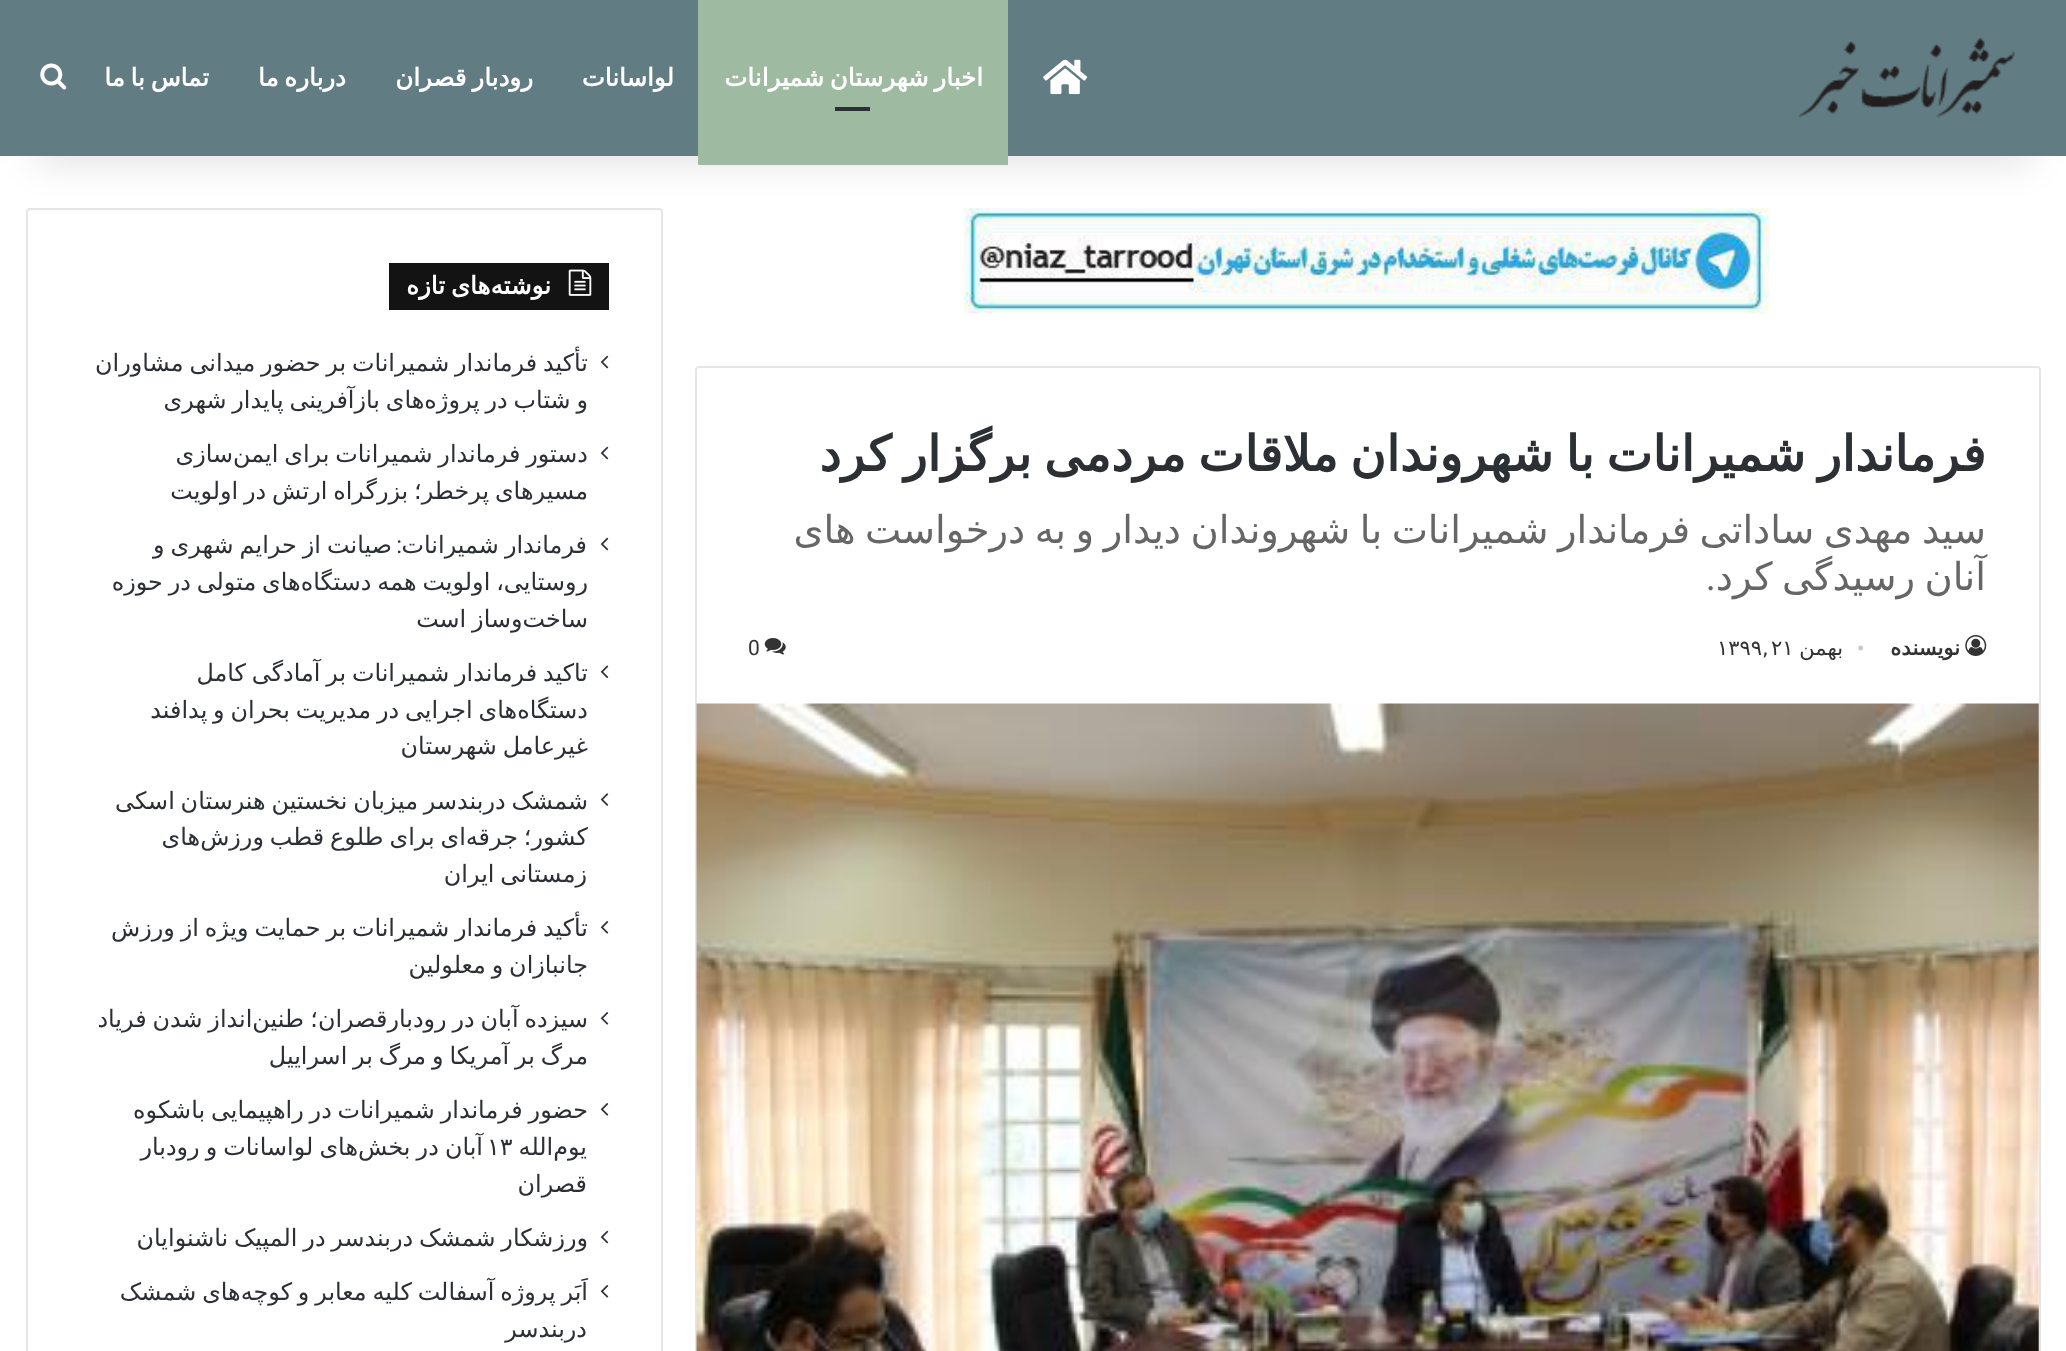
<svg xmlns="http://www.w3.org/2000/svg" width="2066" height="1351">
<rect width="100%" height="100%" fill="#fff"/>
<image x="964" y="208" width="806" height="106" href="media/4.png"/>
<rect x="27" y="209" width="635" height="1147" rx="3" fill="none" stroke="#e6e6e6" stroke-width="2"/>
<rect x="35" y="79" width="1997" height="86" fill="#0000001a" filter="blur(17.5px)"/>
<rect width="2066" height="156" fill="#627c83"/>
<image x="1798" y="38" width="217" height="80" href="media/1.png"/>
<image x="1043" y="59" width="45" height="36" href="media/2.png"/>
<rect x="698" width="310" height="165" fill="#9ebaa0"/>
<text x="983" y="86" word-spacing="-2" style="font-family:DejaVu Sans;font-size:24.5px;font-weight:bold;direction:rtl;fill:#fff">اخبار شهرستان شمیرانات</text>
<rect x="835" y="107" width="35" height="4" fill="#2c2f34"/>
<text x="674" y="86" style="font-family:DejaVu Sans;font-size:24.5px;font-weight:bold;direction:rtl;fill:#fff">لواسانات</text>
<text x="533" y="86" word-spacing="-2" style="font-family:DejaVu Sans;font-size:24.5px;font-weight:bold;direction:rtl;fill:#fff">رودبار قصران</text>
<text x="346" y="86" word-spacing="-2" style="font-family:DejaVu Sans;font-size:24.5px;font-weight:bold;direction:rtl;fill:#fff">درباره ما</text>
<text x="209" y="86" word-spacing="-2" style="font-family:DejaVu Sans;font-size:24.5px;font-weight:bold;direction:rtl;fill:#fff">تماس با ما</text>
<image x="40" y="63" width="27" height="27" href="media/3.png"/>
<rect x="696" y="367" width="1344" height="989" rx="3" fill="none" stroke="#e6e6e6" stroke-width="2"/>
<text x="1986" y="471" word-spacing="-3.5" style="font-family:DejaVu Sans;font-size:49px;font-weight:bold;direction:rtl;fill:#2c2f34">فرماندار شمیرانات با شهروندان ملاقات مردمی برگزار کرد</text>
<text x="1986" y="543" word-spacing="-2.75" style="font-family:DejaVu Sans;font-size:38.5px;direction:rtl;fill:#666">سید مهدی ساداتی فرماندار شمیرانات با شهروندان دیدار و به درخواست های</text>
<text x="1986" y="590" word-spacing="-2.75" style="font-family:DejaVu Sans;font-size:38.5px;direction:rtl;fill:#666">آنان رسیدگی کرد</text>
<text x="1716" y="590" style="font-family:Roboto;font-size:38.5px;direction:rtl;fill:#666">.</text>
<image x="1965" y="635" width="22" height="21" href="media/5.png"/>
<text x="1960" y="655" style="font-family:DejaVu Sans;font-size:21px;font-weight:bold;direction:rtl;fill:#333">نویسنده</text>
<text x="1857" y="655" style="font-family:Liberation Serif;font-size:21px;fill:#ccc">•</text>
<text x="1843" y="655" style="font-family:DejaVu Sans;font-size:21px;direction:rtl;fill:#333">بهمن</text>
<text x="1771" y="655" style="font-family:DejaVu Sans;font-size:21px;fill:#333">۲۱</text>
<text x="1717" y="655" style="font-family:DejaVu Sans;font-size:21px;fill:#333">۱۳۹۹,</text>
<image x="764" y="638" width="22" height="17" href="media/6.png"/>
<text x="748" y="655" style="font-family:Roboto;font-size:21px;fill:#333">0</text>
<image x="696" y="703" width="1343" height="648" href="media/7.png"/>
<rect x="389" y="263" width="220" height="47" fill="#131313"/>
<image x="568" y="269" width="24" height="27" href="media/8.png"/>
<text x="551" y="294" word-spacing="-2" style="font-family:DejaVu Sans;font-size:24.5px;font-weight:bold;direction:rtl;fill:#fff">نوشته‌های تازه</text>
<image x="600" y="355" width="9" height="14" href="media/9.png"/>
<text x="588" y="371" word-spacing="-1.75" style="font-family:DejaVu Sans;font-size:23.9px;direction:rtl;fill:#2c2f34">تأکید فرماندار شمیرانات بر حضور میدانی مشاوران</text>
<text x="588" y="408" word-spacing="-1.75" style="font-family:DejaVu Sans;font-size:23.9px;direction:rtl;fill:#2c2f34">و شتاب در پروژه‌های بازآفرینی پایدار شهری</text>
<image x="600" y="446" width="9" height="14" href="media/9.png"/>
<text x="588" y="462" word-spacing="-1.75" style="font-family:DejaVu Sans;font-size:23.9px;direction:rtl;fill:#2c2f34">دستور فرماندار شمیرانات برای ایمن‌سازی</text>
<text x="588" y="499" word-spacing="-1.75" style="font-family:DejaVu Sans;font-size:23.9px;direction:rtl;fill:#2c2f34">مسیرهای پرخطر؛ بزرگراه ارتش در اولویت</text>
<image x="600" y="537" width="9" height="14" href="media/9.png"/>
<text x="587" y="553" word-spacing="-1.5" style="font-family:DejaVu Sans;font-size:23.9px;direction:rtl;fill:#2c2f34">فرماندار شمیرانات</text>
<text x="402" y="553" style="font-family:Roboto;font-size:23.9px;direction:rtl;fill:#2c2f34">:</text>
<text x="392" y="553" word-spacing="-1.5" style="font-family:DejaVu Sans;font-size:23.9px;direction:rtl;fill:#2c2f34">صیانت از حرایم شهری و</text>
<text x="588" y="590" word-spacing="-1.75" style="font-family:DejaVu Sans;font-size:23.9px;direction:rtl;fill:#2c2f34">روستایی، اولویت همه دستگاه‌های متولی در حوزه</text>
<text x="588" y="627" word-spacing="-1.75" style="font-family:DejaVu Sans;font-size:23.9px;direction:rtl;fill:#2c2f34">ساخت‌وساز است</text>
<image x="600" y="665" width="9" height="14" href="media/10.png"/>
<text x="588" y="681" word-spacing="-1.75" style="font-family:DejaVu Sans;font-size:23.9px;direction:rtl;fill:#2c2f34">تاکید فرماندار شمیرانات بر آمادگی کامل</text>
<text x="588" y="718" word-spacing="-1.75" style="font-family:DejaVu Sans;font-size:23.9px;direction:rtl;fill:#2c2f34">دستگاه‌های اجرایی در مدیریت بحران و پدافند</text>
<text x="588" y="754" word-spacing="-1.75" style="font-family:DejaVu Sans;font-size:23.9px;direction:rtl;fill:#2c2f34">غیرعامل شهرستان</text>
<image x="600" y="793" width="9" height="13" href="media/11.png"/>
<text x="588" y="809" word-spacing="-1.75" style="font-family:DejaVu Sans;font-size:23.9px;direction:rtl;fill:#2c2f34">شمشک دربندسر میزبان نخستین هنرستان اسکی</text>
<text x="588" y="845" word-spacing="-1.75" style="font-family:DejaVu Sans;font-size:23.9px;direction:rtl;fill:#2c2f34">کشور؛ جرقه‌ای برای طلوع قطب ورزش‌های</text>
<text x="587" y="882" word-spacing="-1.75" style="font-family:DejaVu Sans;font-size:23.9px;direction:rtl;fill:#2c2f34">زمستانی ایران</text>
<image x="600" y="921" width="9" height="13" href="media/12.png"/>
<text x="588" y="936" word-spacing="-1.75" style="font-family:DejaVu Sans;font-size:23.9px;direction:rtl;fill:#2c2f34">تأکید فرماندار شمیرانات بر حمایت ویژه از ورزش</text>
<text x="588" y="973" word-spacing="-1.75" style="font-family:DejaVu Sans;font-size:23.9px;direction:rtl;fill:#2c2f34">جانبازان و معلولین</text>
<image x="600" y="1012" width="9" height="13" href="media/12.png"/>
<text x="588" y="1027" word-spacing="-1.75" style="font-family:DejaVu Sans;font-size:23.9px;direction:rtl;fill:#2c2f34">سیزده آبان در رودبارقصران؛</text>
<text x="304" y="1027" word-spacing="-1.75" style="font-family:DejaVu Sans;font-size:23.9px;direction:rtl;fill:#2c2f34">طنین‌انداز شدن فریاد</text>
<text x="588" y="1064" word-spacing="-1.75" style="font-family:DejaVu Sans;font-size:23.9px;direction:rtl;fill:#2c2f34">مرگ بر آمریکا و مرگ بر اسراییل</text>
<image x="600" y="1103" width="9" height="13" href="media/12.png"/>
<text x="588" y="1118" word-spacing="-1.75" style="font-family:DejaVu Sans;font-size:23.9px;direction:rtl;fill:#2c2f34">حضور فرماندار شمیرانات در راهپیمایی باشکوه</text>
<text x="587" y="1155" style="font-family:DejaVu Sans;font-size:23.9px;direction:rtl;fill:#2c2f34">یوم‌الله</text>
<text x="483" y="1155" word-spacing="-1.5" style="font-family:DejaVu Sans;font-size:23.9px;direction:rtl;fill:#2c2f34">آبان در بخش‌های لواسانات و رودبار</text>
<text x="487" y="1155" style="font-family:DejaVu Sans;font-size:23.9px;fill:#2c2f34">۱۳</text>
<text x="587" y="1192" style="font-family:DejaVu Sans;font-size:23.9px;direction:rtl;fill:#2c2f34">قصران</text>
<image x="600" y="1230" width="9" height="14" href="media/9.png"/>
<text x="588" y="1246" word-spacing="-1.75" style="font-family:DejaVu Sans;font-size:23.9px;direction:rtl;fill:#2c2f34">ورزشکار شمشک دربندسر در المپیک ناشنوایان</text>
<image x="600" y="1285" width="9" height="13" href="media/12.png"/>
<text x="588" y="1300" word-spacing="-1.75" style="font-family:DejaVu Sans;font-size:23.9px;direction:rtl;fill:#2c2f34">اَبَر پروژه آسفالت کلیه معابر و کوچه‌های شمشک</text>
<text x="587" y="1337" style="font-family:DejaVu Sans;font-size:23.9px;direction:rtl;fill:#2c2f34">دربندسر</text>
</svg>
